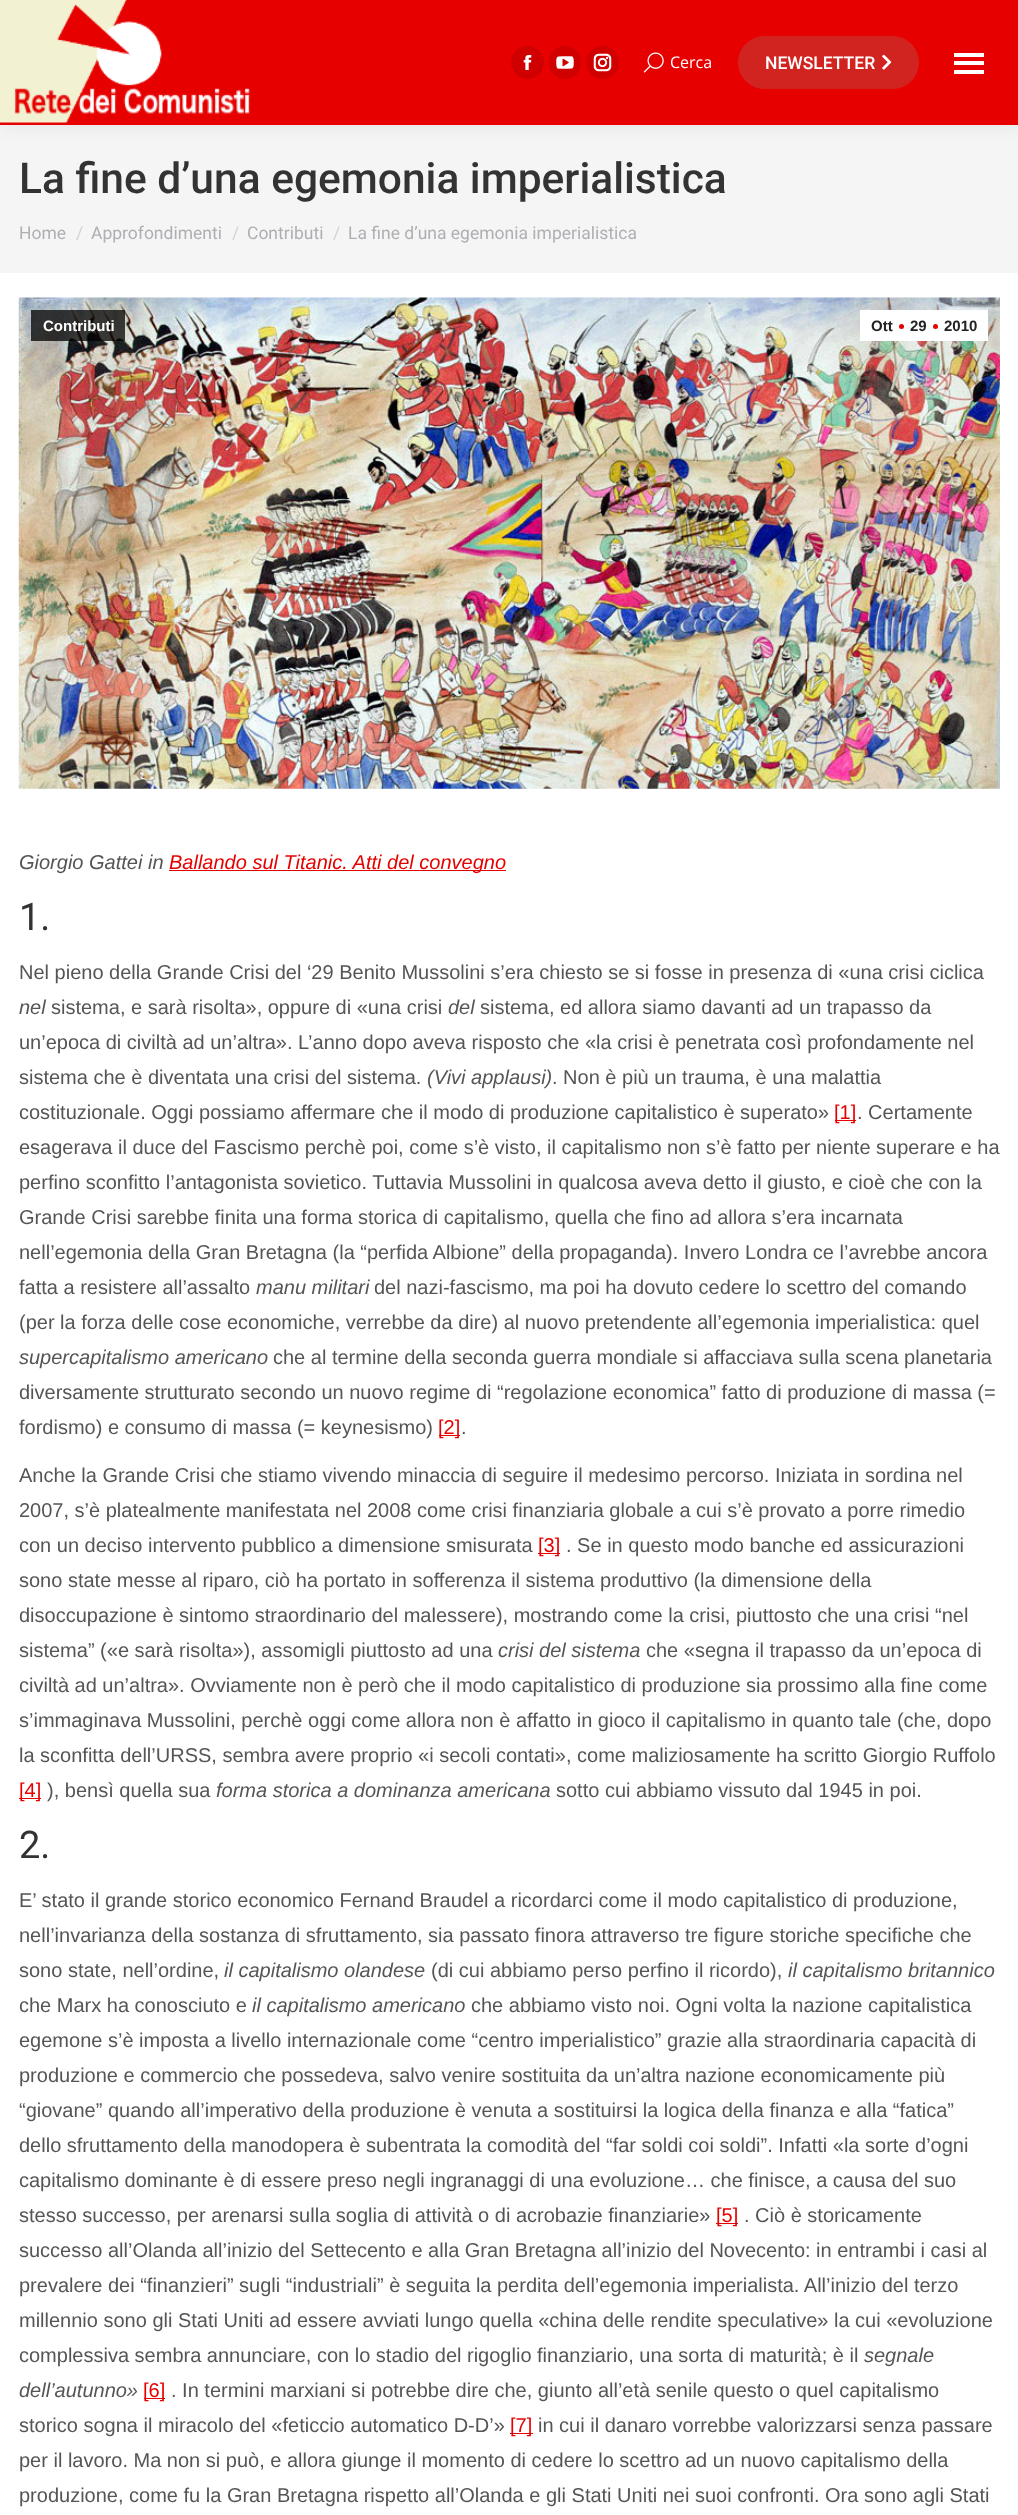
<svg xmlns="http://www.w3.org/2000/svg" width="1018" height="2515">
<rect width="100%" height="100%" fill="#fff"/>
<rect y="125" width="1018" height="148" fill="#f5f5f5"/>
<rect x="-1" y="-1" width="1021" height="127" fill="#00000012" filter="blur(9.5px)"/>
<rect width="1018" height="125" fill="#e70000"/>
<image x="0" y="0" width="251" height="123" href="media/1.png"/>
<circle cx="527.5" cy="62.5" r="16.5" fill="#d00000"/>
<image x="523" y="55" width="9" height="15" href="media/2.png"/>
<rect x="549" y="46" width="32" height="33" rx="16" fill="#d00000"/>
<image x="556" y="56" width="18" height="13" href="media/3.png"/>
<circle cx="602.5" cy="62.5" r="16.5" fill="#d00000"/>
<image x="593" y="53" width="19" height="19" href="media/4.png"/>
<image x="643" y="52" width="21" height="21" href="media/5.png"/>
<text x="670" y="68" style="font-family:Open Sans;font-size:16px;fill:#fff">Cerca</text>
<rect x="738" y="36" width="181" height="53" rx="26.5" fill="#d12421"/>
<text x="765" y="69" style="font-family:Roboto;font-size:17.5px;font-weight:500;fill:#fff">NEWSLETTER</text>
<image x="882" y="54" width="10" height="16" href="media/6.png"/>
<rect x="954" y="53" width="30" height="4" fill="#fff"/>
<rect x="954" y="61" width="30" height="4" fill="#fff"/>
<rect x="954" y="70" width="30" height="4" fill="#fff"/>
<text x="19" y="193" style="font-family:Roboto;font-size:42.5px;font-weight:500;fill:#333">La fine d’una egemonia imperialistica</text>
<text x="19" y="239" style="font-family:Roboto;font-size:17.5px;fill:#adafb3">Home</text>
<text x="76" y="239" style="font-family:Roboto;font-size:17.5px;fill:#d1d2d4">/</text>
<text x="91" y="239" style="font-family:Roboto;font-size:17.5px;fill:#adafb3">Approfondimenti</text>
<text x="232" y="239" style="font-family:Roboto;font-size:17.5px;fill:#d1d2d4">/</text>
<text x="247" y="239" style="font-family:Roboto;font-size:17.5px;fill:#adafb3">Contributi</text>
<text x="333" y="239" style="font-family:Roboto;font-size:17.5px;fill:#d1d2d4">/</text>
<text x="348" y="239" style="font-family:Roboto;font-size:17.5px;fill:#adafb3">La fine d’una egemonia imperialistica</text>
<image x="18" y="297" width="982" height="492" href="media/7.png"/>
<rect x="31" y="310" width="94" height="31" fill="#000000bf"/>
<text x="43" y="331" style="font-family:Liberation Sans;font-size:15px;font-weight:bold;fill:#fff">Contributi</text>
<rect x="860" y="310" width="128" height="31" fill="#fff"/>
<text x="871" y="331" style="font-family:Liberation Sans;font-size:15px;font-weight:bold;fill:#222">Ott</text>
<circle cx="901.5" cy="326.5" r="2.5" fill="#e70000"/>
<text x="910" y="331" style="font-family:Liberation Sans;font-size:15px;font-weight:bold;fill:#222">29</text>
<circle cx="935.5" cy="326.5" r="2.5" fill="#e70000"/>
<text x="944" y="331" style="font-family:Liberation Sans;font-size:15px;font-weight:bold;fill:#222">2010</text>
<text x="19" y="869" style="font-family:Liberation Sans;font-size:20px;font-style:italic;fill:#555">Giorgio Gattei in</text>
<rect x="169" y="870" width="337" height="1" fill="#e70000"/>
<text x="169" y="869" style="font-family:Liberation Sans;font-size:20px;font-style:italic;fill:#e70000">Ballando sul Titanic. Atti del convegno</text>
<text x="19" y="930" style="font-family:Roboto;font-size:38px;fill:#333">1.</text>
<text x="19" y="979" style="font-family:Liberation Sans;font-size:20px;fill:#555">Nel pieno della Grande Crisi del ‘29 Benito Mussolini s’era chiesto se si fosse in presenza di «una crisi ciclica</text>
<text x="19" y="1014" style="font-family:Liberation Sans;font-size:20px;font-style:italic;fill:#555">nel</text>
<text x="51" y="1014" style="font-family:Liberation Sans;font-size:20px;fill:#555">sistema, e sarà risolta», oppure di «una crisi</text>
<text x="448" y="1014" style="font-family:Liberation Sans;font-size:20px;font-style:italic;fill:#555">del</text>
<text x="480" y="1014" style="font-family:Liberation Sans;font-size:20px;fill:#555">sistema, ed allora siamo davanti ad un trapasso da</text>
<text x="19" y="1049" style="font-family:Liberation Sans;font-size:20px;fill:#555">un’epoca di civiltà ad un’altra». L’anno dopo aveva risposto che «la crisi è penetrata così profondamente nel</text>
<text x="19" y="1084" style="font-family:Liberation Sans;font-size:20px;fill:#555">sistema che è diventata una crisi del sistema.</text>
<text x="427" y="1084" style="font-family:Liberation Sans;font-size:20px;font-style:italic;fill:#555">(Vivi applausi)</text>
<text x="552" y="1084" style="font-family:Liberation Sans;font-size:20px;fill:#555">. Non è più un trauma, è una malattia</text>
<text x="19" y="1119" style="font-family:Liberation Sans;font-size:20px;fill:#555">costituzionale. Oggi possiamo affermare che il modo di produzione capitalistico è superato»</text>
<rect x="835" y="1120" width="21" height="1" fill="#e70000"/>
<text x="834" y="1119" style="font-family:Liberation Sans;font-size:20px;fill:#e70000">[1]</text>
<text x="857" y="1119" style="font-family:Liberation Sans;font-size:20px;fill:#555">. Certamente</text>
<text x="19" y="1154" style="font-family:Liberation Sans;font-size:20px;fill:#555">esagerava il duce del Fascismo perchè poi, come s’è visto, il capitalismo non s’è fatto per niente superare e ha</text>
<text x="19" y="1189" style="font-family:Liberation Sans;font-size:20px;fill:#555">perfino sconfitto l’antagonista sovietico. Tuttavia Mussolini in qualcosa aveva detto il giusto, e cioè che con la</text>
<text x="19" y="1224" style="font-family:Liberation Sans;font-size:20px;fill:#555">Grande Crisi sarebbe finita una forma storica di capitalismo, quella che fino ad allora s’era incarnata</text>
<text x="19" y="1259" style="font-family:Liberation Sans;font-size:20px;fill:#555">nell’egemonia della Gran Bretagna (la “perfida Albione” della propaganda). Invero Londra ce l’avrebbe ancora</text>
<text x="19" y="1294" style="font-family:Liberation Sans;font-size:20px;fill:#555">fatta a resistere all’assalto</text>
<text x="256" y="1294" style="font-family:Liberation Sans;font-size:20px;font-style:italic;fill:#555">manu militari</text>
<text x="374" y="1294" style="font-family:Liberation Sans;font-size:20px;fill:#555">del nazi-fascismo, ma poi ha dovuto cedere lo scettro del comando</text>
<text x="19" y="1329" style="font-family:Liberation Sans;font-size:20px;fill:#555">(per la forza delle cose economiche, verrebbe da dire) al nuovo pretendente all’egemonia imperialistica: quel</text>
<text x="19" y="1364" style="font-family:Liberation Sans;font-size:20px;font-style:italic;fill:#555">supercapitalismo americano</text>
<text x="273" y="1364" style="font-family:Liberation Sans;font-size:20px;fill:#555">che al termine della seconda guerra mondiale si affacciava sulla scena planetaria</text>
<text x="19" y="1399" style="font-family:Liberation Sans;font-size:20px;fill:#555">diversamente strutturato secondo un nuovo regime di “regolazione economica” fatto di produzione di massa (=</text>
<text x="19" y="1434" style="font-family:Liberation Sans;font-size:20px;fill:#555">fordismo) e consumo di massa (= keynesismo)</text>
<rect x="439" y="1435" width="21" height="1" fill="#e70000"/>
<text x="438" y="1434" style="font-family:Liberation Sans;font-size:20px;fill:#e70000">[2]</text>
<text x="461" y="1434" style="font-family:Liberation Sans;font-size:20px;fill:#555">.</text>
<text x="19" y="1482" style="font-family:Liberation Sans;font-size:20px;fill:#555">Anche la Grande Crisi che stiamo vivendo minaccia di seguire il medesimo percorso. Iniziata in sordina nel</text>
<text x="19" y="1517" style="font-family:Liberation Sans;font-size:20px;fill:#555">2007, s’è platealmente manifestata nel 2008 come crisi finanziaria globale a cui s’è provato a porre rimedio</text>
<text x="19" y="1552" style="font-family:Liberation Sans;font-size:20px;fill:#555">con un deciso intervento pubblico a dimensione smisurata</text>
<rect x="538" y="1553" width="22" height="1" fill="#e70000"/>
<text x="538" y="1552" style="font-family:Liberation Sans;font-size:20px;fill:#e70000">[3]</text>
<text x="566" y="1552" style="font-family:Liberation Sans;font-size:20px;fill:#555">. Se in questo modo banche ed assicurazioni</text>
<text x="19" y="1587" style="font-family:Liberation Sans;font-size:20px;fill:#555">sono state messe al riparo, ciò ha portato in sofferenza il sistema produttivo (la dimensione della</text>
<text x="19" y="1622" style="font-family:Liberation Sans;font-size:20px;fill:#555">disoccupazione è sintomo straordinario del malessere), mostrando come la crisi, piuttosto che una crisi “nel</text>
<text x="19" y="1657" style="font-family:Liberation Sans;font-size:20px;fill:#555">sistema” («e sarà risolta»), assomigli piuttosto ad una</text>
<text x="498" y="1657" style="font-family:Liberation Sans;font-size:20px;font-style:italic;fill:#555">crisi del sistema</text>
<text x="646" y="1657" style="font-family:Liberation Sans;font-size:20px;fill:#555">che «segna il trapasso da un’epoca di</text>
<text x="19" y="1692" style="font-family:Liberation Sans;font-size:20px;fill:#555">civiltà ad un’altra». Ovviamente non è però che il modo capitalistico di produzione sia prossimo alla fine come</text>
<text x="19" y="1727" style="font-family:Liberation Sans;font-size:20px;fill:#555">s’immaginava Mussolini, perchè oggi come allora non è affatto in gioco il capitalismo in quanto tale (che, dopo</text>
<text x="19" y="1762" style="font-family:Liberation Sans;font-size:20px;fill:#555">la sconfitta dell’URSS, sembra avere proprio «i secoli contati», come maliziosamente ha scritto Giorgio Ruffolo</text>
<rect x="19" y="1798" width="22" height="1" fill="#e70000"/>
<text x="19" y="1797" style="font-family:Liberation Sans;font-size:20px;fill:#e70000">[4]</text>
<text x="47" y="1797" style="font-family:Liberation Sans;font-size:20px;fill:#555">), bensì quella sua</text>
<text x="216" y="1797" style="font-family:Liberation Sans;font-size:20px;font-style:italic;fill:#555">forma storica a dominanza americana</text>
<text x="556" y="1797" style="font-family:Liberation Sans;font-size:20px;fill:#555">sotto cui abbiamo vissuto dal 1945 in poi.</text>
<text x="19" y="1858" style="font-family:Roboto;font-size:38px;fill:#333">2.</text>
<text x="19" y="1907" style="font-family:Liberation Sans;font-size:20px;fill:#555">E’ stato il grande storico economico Fernand Braudel a ricordarci come il modo capitalistico di produzione,</text>
<text x="19" y="1942" style="font-family:Liberation Sans;font-size:20px;fill:#555">nell’invarianza della sostanza di sfruttamento, sia passato finora attraverso tre figure storiche specifiche che</text>
<text x="19" y="1977" style="font-family:Liberation Sans;font-size:20px;fill:#555">sono state, nell’ordine,</text>
<text x="224" y="1977" style="font-family:Liberation Sans;font-size:20px;font-style:italic;fill:#555">il capitalismo olandese</text>
<text x="431" y="1977" style="font-family:Liberation Sans;font-size:20px;fill:#555">(di cui abbiamo perso perfino il ricordo),</text>
<text x="788" y="1977" style="font-family:Liberation Sans;font-size:20px;font-style:italic;fill:#555">il capitalismo britannico</text>
<text x="19" y="2012" style="font-family:Liberation Sans;font-size:20px;fill:#555">che Marx ha conosciuto e</text>
<text x="252" y="2012" style="font-family:Liberation Sans;font-size:20px;font-style:italic;fill:#555">il capitalismo americano</text>
<text x="471" y="2012" style="font-family:Liberation Sans;font-size:20px;fill:#555">che abbiamo visto noi. Ogni volta la nazione capitalistica</text>
<text x="19" y="2047" style="font-family:Liberation Sans;font-size:20px;fill:#555">egemone s’è imposta a livello internazionale come “centro imperialistico” grazie alla straordinaria capacità di</text>
<text x="19" y="2082" style="font-family:Liberation Sans;font-size:20px;fill:#555">produzione e commercio che possedeva, salvo venire sostituita da un’altra nazione economicamente più</text>
<text x="19" y="2117" style="font-family:Liberation Sans;font-size:20px;fill:#555">“giovane” quando all’imperativo della produzione è venuta a sostituirsi la logica della finanza e alla “fatica”</text>
<text x="19" y="2152" style="font-family:Liberation Sans;font-size:20px;fill:#555">dello sfruttamento della manodopera è subentrata la comodità del “far soldi coi soldi”. Infatti «la sorte d’ogni</text>
<text x="19" y="2187" style="font-family:Liberation Sans;font-size:20px;fill:#555">capitalismo dominante è di essere preso negli ingranaggi di una evoluzione… che finisce, a causa del suo</text>
<text x="19" y="2222" style="font-family:Liberation Sans;font-size:20px;fill:#555">stesso successo, per arenarsi sulla soglia di attività o di acrobazie finanziarie»</text>
<rect x="716" y="2223" width="22" height="1" fill="#e70000"/>
<text x="716" y="2222" style="font-family:Liberation Sans;font-size:20px;fill:#e70000">[5]</text>
<text x="744" y="2222" style="font-family:Liberation Sans;font-size:20px;fill:#555">. Ciò è storicamente</text>
<text x="19" y="2257" style="font-family:Liberation Sans;font-size:20px;fill:#555">successo all’Olanda all’inizio del Settecento e alla Gran Bretagna all’inizio del Novecento: in entrambi i casi al</text>
<text x="19" y="2292" style="font-family:Liberation Sans;font-size:20px;fill:#555">prevalere dei “finanzieri” sugli “industriali” è seguita la perdita dell’egemonia imperialista. All’inizio del terzo</text>
<text x="19" y="2327" style="font-family:Liberation Sans;font-size:20px;fill:#555">millennio sono gli Stati Uniti ad essere avviati lungo quella «china delle rendite speculative» la cui «evoluzione</text>
<text x="19" y="2362" style="font-family:Liberation Sans;font-size:20px;fill:#555">complessiva sembra annunciare, con lo stadio del rigoglio finanziario, una sorta di maturità; è il</text>
<text x="864" y="2362" style="font-family:Liberation Sans;font-size:20px;font-style:italic;fill:#555">segnale</text>
<text x="19" y="2397" style="font-family:Liberation Sans;font-size:20px;font-style:italic;fill:#555">dell’autunno»</text>
<rect x="144" y="2398" width="21" height="1" fill="#e70000"/>
<text x="143" y="2397" style="font-family:Liberation Sans;font-size:20px;fill:#e70000">[6]</text>
<text x="171" y="2397" style="font-family:Liberation Sans;font-size:20px;fill:#555">. In termini marxiani si potrebbe dire che, giunto all’età senile questo o quel capitalismo</text>
<text x="19" y="2432" style="font-family:Liberation Sans;font-size:20px;fill:#555">storico sogna il miracolo del «feticcio automatico D-D’»</text>
<rect x="510" y="2433" width="23" height="1" fill="#e70000"/>
<text x="510" y="2432" style="font-family:Liberation Sans;font-size:20px;fill:#e70000">[7]</text>
<text x="538" y="2432" style="font-family:Liberation Sans;font-size:20px;fill:#555">in cui il danaro vorrebbe valorizzarsi senza passare</text>
<text x="19" y="2467" style="font-family:Liberation Sans;font-size:20px;fill:#555">per il lavoro. Ma non si può, e allora giunge il momento di cedere lo scettro ad un nuovo capitalismo della</text>
<text x="19" y="2502" style="font-family:Liberation Sans;font-size:20px;fill:#555">produzione, come fu la Gran Bretagna rispetto all’Olanda e gli Stati Uniti nei suoi confronti. Ora sono agli Stati</text>
</svg>
